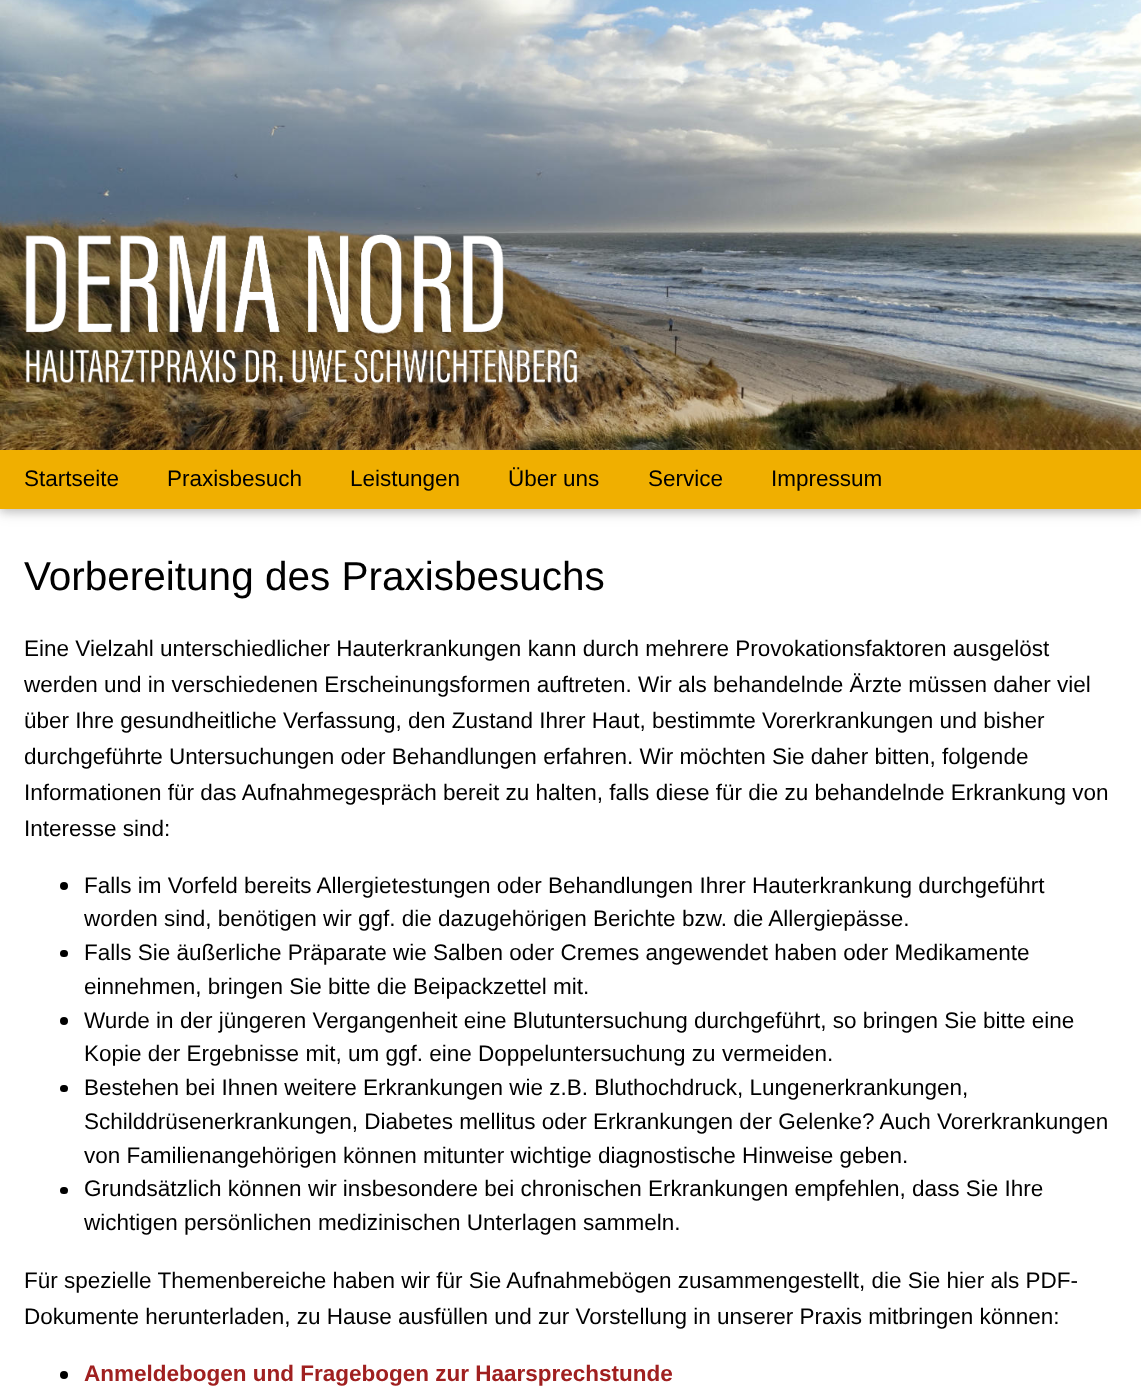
<svg xmlns="http://www.w3.org/2000/svg" width="1141" height="1400">
<rect width="100%" height="100%" fill="#fff"/>
<rect y="453" width="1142" height="59" fill="#0000001f" filter="blur(7.5px)"/>
<rect y="453" width="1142" height="59" fill="#00000029" filter="blur(4px)"/>
<image x="0" y="0" width="1141" height="450" href="media/1.png"/>
<image x="25" y="234" width="553" height="149" href="media/2.png"/>
<rect y="450" width="1141" height="59" fill="#f0af00"/>
<text x="24" y="486" style="font-family:Liberation Sans;font-size:22.5px;fill:#000">Startseite</text>
<text x="167" y="486" style="font-family:Liberation Sans;font-size:22.5px;fill:#000">Praxisbesuch</text>
<text x="350" y="486" style="font-family:Liberation Sans;font-size:22.5px;fill:#000">Leistungen</text>
<text x="508" y="486" style="font-family:Liberation Sans;font-size:22.5px;fill:#000">Über uns</text>
<text x="648" y="486" style="font-family:Liberation Sans;font-size:22.5px;fill:#000">Service</text>
<text x="771" y="486" style="font-family:Liberation Sans;font-size:22.5px;fill:#000">Impressum</text>
<text x="24" y="590" style="font-family:Liberation Sans;font-size:40.5px;fill:#000">Vorbereitung des Praxisbesuchs</text>
<text x="24" y="656" style="font-family:Liberation Sans;font-size:22.5px;fill:#000">Eine Vielzahl unterschiedlicher Hauterkrankungen kann durch mehrere Provokationsfaktoren ausgelöst</text>
<text x="24" y="692" style="font-family:Liberation Sans;font-size:22.5px;fill:#000">werden und in verschiedenen Erscheinungsformen auftreten. Wir als behandelnde Ärzte müssen daher viel</text>
<text x="24" y="728" style="font-family:Liberation Sans;font-size:22.5px;fill:#000">über Ihre gesundheitliche Verfassung, den Zustand Ihrer Haut, bestimmte Vorerkrankungen und bisher</text>
<text x="24" y="764" style="font-family:Liberation Sans;font-size:22.5px;fill:#000">durchgeführte Untersuchungen oder Behandlungen erfahren. Wir möchten Sie daher bitten, folgende</text>
<text x="24" y="800" style="font-family:Liberation Sans;font-size:22.5px;fill:#000">Informationen für das Aufnahmegespräch bereit zu halten, falls diese für die zu behandelnde Erkrankung von</text>
<text x="24" y="836" style="font-family:Liberation Sans;font-size:22.5px;fill:#000">Interesse sind:</text>
<circle cx="64" cy="886" r="4" fill="#000"/>
<text x="84" y="893" style="font-family:Liberation Sans;font-size:22.5px;fill:#000">Falls im Vorfeld bereits Allergietestungen oder Behandlungen Ihrer Hauterkrankung durchgeführt</text>
<text x="84" y="926" style="font-family:Liberation Sans;font-size:22.5px;fill:#000">worden sind, benötigen wir ggf. die dazugehörigen Berichte bzw. die Allergiepässe.</text>
<rect x="60" y="950" width="8" height="7" rx="3.5" fill="#000"/>
<text x="84" y="960" style="font-family:Liberation Sans;font-size:22.5px;fill:#000">Falls Sie äußerliche Präparate wie Salben oder Cremes angewendet haben oder Medikamente</text>
<text x="84" y="994" style="font-family:Liberation Sans;font-size:22.5px;fill:#000">einnehmen, bringen Sie bitte die Beipackzettel mit.</text>
<circle cx="64" cy="1021" r="4" fill="#000"/>
<text x="84" y="1028" style="font-family:Liberation Sans;font-size:22.5px;fill:#000">Wurde in der jüngeren Vergangenheit eine Blutuntersuchung durchgeführt, so bringen Sie bitte eine</text>
<text x="84" y="1061" style="font-family:Liberation Sans;font-size:22.5px;fill:#000">Kopie der Ergebnisse mit, um ggf. eine Doppeluntersuchung zu vermeiden.</text>
<rect x="60" y="1085" width="8" height="7" rx="3.5" fill="#000"/>
<text x="84" y="1095" style="font-family:Liberation Sans;font-size:22.5px;fill:#000">Bestehen bei Ihnen weitere Erkrankungen wie z.B. Bluthochdruck, Lungenerkrankungen,</text>
<text x="84" y="1129" style="font-family:Liberation Sans;font-size:22.5px;fill:#000">Schilddrüsenerkrankungen, Diabetes mellitus oder Erkrankungen der Gelenke? Auch Vorerkrankungen</text>
<text x="84" y="1163" style="font-family:Liberation Sans;font-size:22.5px;fill:#000">von Familienangehörigen können mitunter wichtige diagnostische Hinweise geben.</text>
<rect x="60" y="1187" width="8" height="7" rx="3.5" fill="#000"/>
<text x="84" y="1196" style="font-family:Liberation Sans;font-size:22.5px;fill:#000">Grundsätzlich können wir insbesondere bei chronischen Erkrankungen empfehlen, dass Sie Ihre</text>
<text x="84" y="1230" style="font-family:Liberation Sans;font-size:22.5px;fill:#000">wichtigen persönlichen medizinischen Unterlagen sammeln.</text>
<text x="24" y="1288" style="font-family:Liberation Sans;font-size:22.5px;fill:#000">Für spezielle Themenbereiche haben wir für Sie Aufnahmebögen zusammengestellt, die Sie hier als PDF-</text>
<text x="24" y="1324" style="font-family:Liberation Sans;font-size:22.5px;fill:#000">Dokumente herunterladen, zu Hause ausfüllen und zur Vorstellung in unserer Praxis mitbringen können:</text>
<circle cx="64" cy="1375" r="4" fill="#000"/>
<text x="84" y="1381" style="font-family:Liberation Sans;font-size:22.5px;font-weight:bold;fill:#a02020">Anmeldebogen und Fragebogen zur Haarsprechstunde</text>
</svg>
